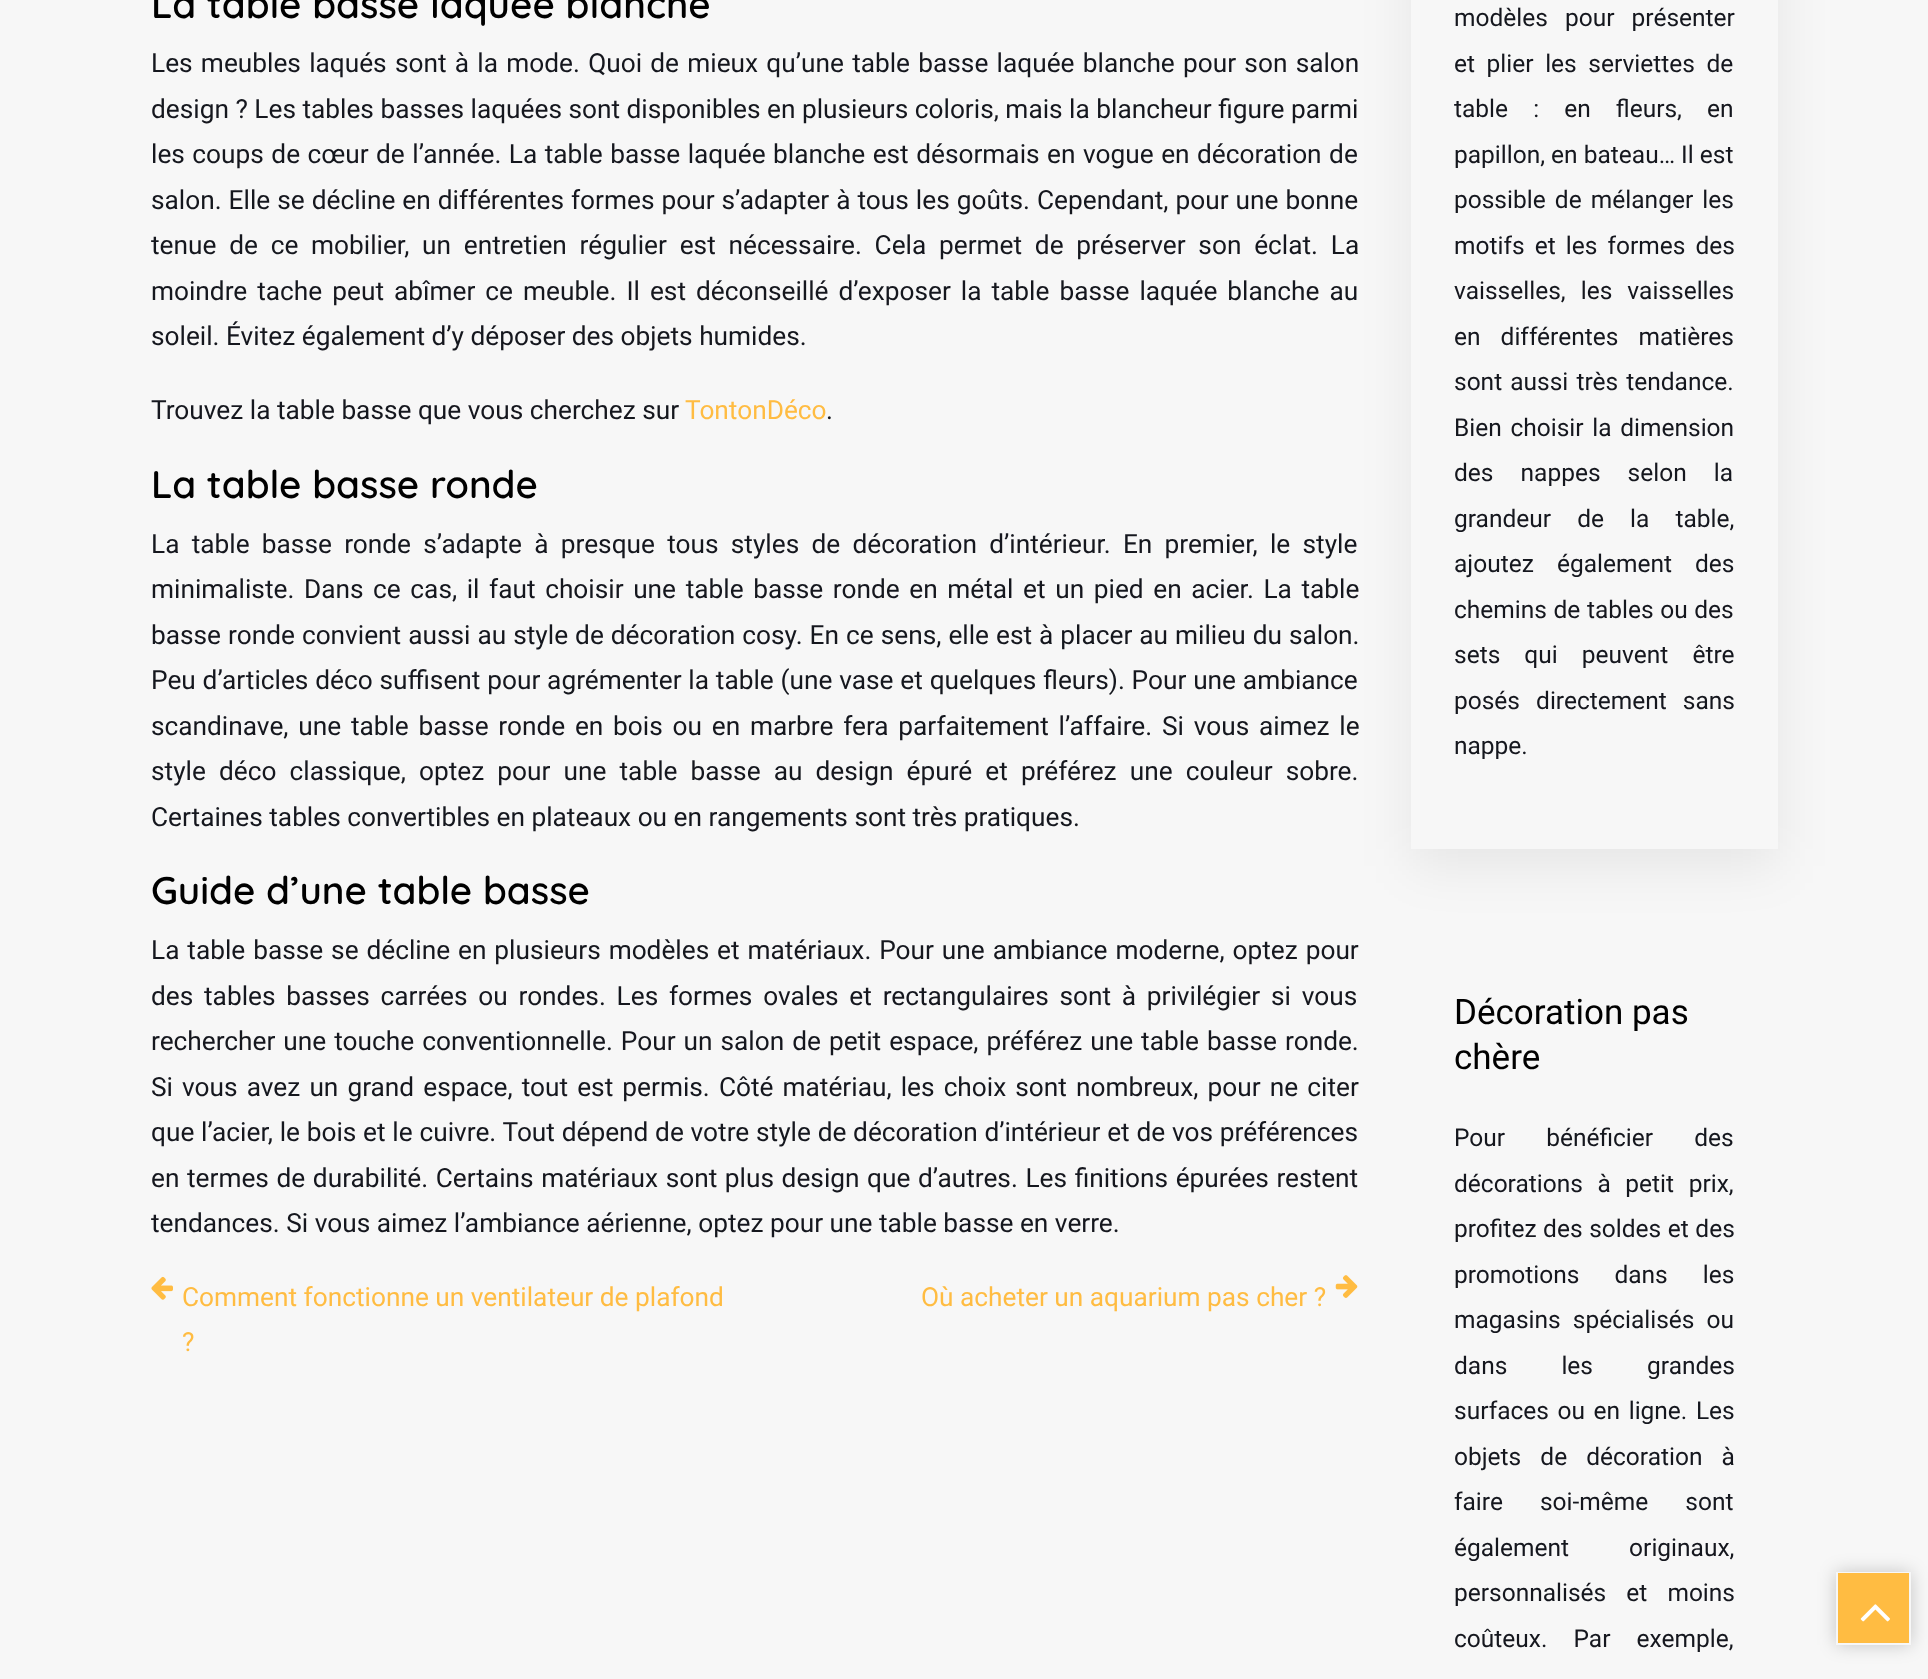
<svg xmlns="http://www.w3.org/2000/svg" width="1928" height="1679">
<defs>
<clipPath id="clip1"><path d="M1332 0h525v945h-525zm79-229h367v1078h-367z" clip-rule="evenodd"/></clipPath>
<clipPath id="clip2"><path d="M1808 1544h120v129h-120zm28 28h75v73h-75z" clip-rule="evenodd"/></clipPath>
</defs>
<rect width="100%" height="100%" fill="#f7f7f7"/>
<text x="151" y="18" style="font-family:Quicksand;font-size:38.5px;font-weight:600;fill:#000">La table basse laquée blanche</text>
<text x="151" y="72" word-spacing="1.75" style="font-family:Roboto;font-size:26.25px;fill:#15171e">Les meubles laqués sont à la mode. Quoi de mieux qu’une table basse laquée blanche pour son salon</text>
<text x="151" y="118" style="font-family:Roboto;font-size:26.25px;fill:#15171e">design ? Les tables basses laquées sont disponibles en plusieurs coloris, mais la blancheur figure parmi</text>
<text x="151" y="163" word-spacing="1" style="font-family:Roboto;font-size:26.25px;fill:#15171e">les coups de cœur de l’année. La table basse laquée blanche est désormais en vogue en décoration de</text>
<text x="151" y="209" word-spacing="0.5" style="font-family:Roboto;font-size:26.25px;fill:#15171e">salon. Elle se décline en différentes formes pour s’adapter à tous les goûts. Cependant, pour une bonne</text>
<text x="151" y="254" word-spacing="6.25" style="font-family:Roboto;font-size:26.25px;fill:#15171e">tenue de ce mobilier, un entretien régulier est nécessaire. Cela permet de préserver son éclat. La</text>
<text x="151" y="300" word-spacing="3.5" style="font-family:Roboto;font-size:26.25px;fill:#15171e">moindre tache peut abîmer ce meuble. Il est déconseillé d’exposer la table basse laquée blanche au</text>
<text x="151" y="345" style="font-family:Roboto;font-size:26.25px;fill:#15171e">soleil. Évitez également d’y déposer des objets humides.</text>
<text x="151" y="419" style="font-family:Roboto;font-size:26.25px;fill:#15171e">Trouvez la table basse que vous cherchez sur</text>
<text x="685" y="419" style="font-family:Roboto;font-size:26.25px;fill:#ffbc42">TontonDéco</text>
<text x="826" y="419" style="font-family:Roboto;font-size:26.25px;fill:#15171e">.</text>
<text x="151" y="498" style="font-family:Quicksand;font-size:38.5px;font-weight:600;fill:#000">La table basse ronde</text>
<text x="151" y="553" word-spacing="5.75" style="font-family:Roboto;font-size:26.25px;fill:#15171e">La table basse ronde s’adapte à presque tous styles de décoration d’intérieur. En premier, le style</text>
<text x="151" y="598" word-spacing="3.1" style="font-family:Roboto;font-size:26.25px;fill:#15171e">minimaliste. Dans ce cas, il faut choisir une table basse ronde en métal et un pied en acier. La table</text>
<text x="151" y="644" word-spacing="0.5" style="font-family:Roboto;font-size:26.25px;fill:#15171e">basse ronde convient aussi au style de décoration cosy. En ce sens, elle est à placer au milieu du salon.</text>
<text x="151" y="689" word-spacing="0.3" style="font-family:Roboto;font-size:26.25px;fill:#15171e">Peu d’articles déco suffisent pour agrémenter la table (une vase et quelques fleurs). Pour une ambiance</text>
<text x="151" y="735" word-spacing="3.25" style="font-family:Roboto;font-size:26.25px;fill:#15171e">scandinave, une table basse ronde en bois ou en marbre fera parfaitement l’affaire. Si vous aimez le</text>
<text x="151" y="780" word-spacing="6.6" style="font-family:Roboto;font-size:26.25px;fill:#15171e">style déco classique, optez pour une table basse au design épuré et préférez une couleur sobre.</text>
<text x="151" y="826" style="font-family:Roboto;font-size:26.25px;fill:#15171e">Certaines tables convertibles en plateaux ou en rangements sont très pratiques.</text>
<text x="151" y="904" style="font-family:Quicksand;font-size:38.5px;font-weight:600;fill:#000">Guide d’une table basse</text>
<text x="151" y="959" word-spacing="1.4" style="font-family:Roboto;font-size:26.25px;fill:#15171e">La table basse se décline en plusieurs modèles et matériaux. Pour une ambiance moderne, optez pour</text>
<text x="151" y="1005" word-spacing="4.25" style="font-family:Roboto;font-size:26.25px;fill:#15171e">des tables basses carrées ou rondes. Les formes ovales et rectangulaires sont à privilégier si vous</text>
<text x="151" y="1050" word-spacing="1.5" style="font-family:Roboto;font-size:26.25px;fill:#15171e">rechercher une touche conventionnelle. Pour un salon de petit espace, préférez une table basse ronde.</text>
<text x="151" y="1096" word-spacing="2.6" style="font-family:Roboto;font-size:26.25px;fill:#15171e">Si vous avez un grand espace, tout est permis. Côté matériau, les choix sont nombreux, pour ne citer</text>
<text x="151" y="1141" word-spacing="0.25" style="font-family:Roboto;font-size:26.25px;fill:#15171e">que l’acier, le bois et le cuivre. Tout dépend de votre style de décoration d’intérieur et de vos préférences</text>
<text x="151" y="1187" word-spacing="1.1" style="font-family:Roboto;font-size:26.25px;fill:#15171e">en termes de durabilité. Certains matériaux sont plus design que d’autres. Les finitions épurées restent</text>
<text x="151" y="1232" style="font-family:Roboto;font-size:26.25px;fill:#15171e">tendances. Si vous aimez l’ambiance aérienne, optez pour une table basse en verre.</text>
<image x="151" y="1276" width="22" height="24" href="media/1.png"/>
<text x="182" y="1306" style="font-family:Roboto;font-size:26.25px;fill:#ffbc42">Comment fonctionne un ventilateur de plafond</text>
<text x="182" y="1351" style="font-family:Roboto;font-size:26.25px;fill:#ffbc42">?</text>
<text x="921" y="1306" style="font-family:Roboto;font-size:26.25px;fill:#ffbc42">Où acheter un aquarium pas cher ?</text>
<image x="1335" y="1275" width="23" height="23" href="media/2.png"/>
<g clip-path="url(#clip1)">
<rect x="1411" y="-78" width="367" height="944" fill="#00000012" filter="blur(26px)"/>
</g>
<text x="1454" y="26" word-spacing="11" style="font-family:Roboto;font-size:24.5px;fill:#15171e">modèles pour présenter</text>
<text x="1454" y="72" word-spacing="5.5" style="font-family:Roboto;font-size:24.5px;fill:#15171e">et plier les serviettes de</text>
<text x="1454" y="117" word-spacing="19" style="font-family:Roboto;font-size:24.5px;fill:#15171e">table : en fleurs, en</text>
<text x="1454" y="163" style="font-family:Roboto;font-size:24.5px;fill:#15171e">papillon, en bateau… Il est</text>
<text x="1454" y="208" word-spacing="3.1" style="font-family:Roboto;font-size:24.5px;fill:#15171e">possible de mélanger les</text>
<text x="1454" y="254" word-spacing="4" style="font-family:Roboto;font-size:24.5px;fill:#15171e">motifs et les formes des</text>
<text x="1454" y="299" word-spacing="9" style="font-family:Roboto;font-size:24.5px;fill:#15171e">vaisselles, les vaisselles</text>
<text x="1454" y="345" word-spacing="14" style="font-family:Roboto;font-size:24.5px;fill:#15171e">en différentes matières</text>
<text x="1454" y="390" word-spacing="2" style="font-family:Roboto;font-size:24.5px;fill:#15171e">sont aussi très tendance.</text>
<text x="1454" y="436" word-spacing="2.6" style="font-family:Roboto;font-size:24.5px;fill:#15171e">Bien choisir la dimension</text>
<text x="1454" y="481" word-spacing="21" style="font-family:Roboto;font-size:24.5px;fill:#15171e">des nappes selon la</text>
<text x="1454" y="527" word-spacing="20" style="font-family:Roboto;font-size:24.5px;fill:#15171e">grandeur de la table,</text>
<text x="1454" y="572" word-spacing="17" style="font-family:Roboto;font-size:24.5px;fill:#15171e">ajoutez également des</text>
<text x="1454" y="618" word-spacing="0.5" style="font-family:Roboto;font-size:24.5px;fill:#15171e">chemins de tables ou des</text>
<text x="1454" y="663" word-spacing="18" style="font-family:Roboto;font-size:24.5px;fill:#15171e">sets qui peuvent être</text>
<text x="1454" y="709" word-spacing="10" style="font-family:Roboto;font-size:24.5px;fill:#15171e">posés directement sans</text>
<text x="1454" y="754" style="font-family:Roboto;font-size:24.5px;fill:#15171e">nappe.</text>
<text x="1454" y="1024" style="font-family:Roboto;font-size:35px;fill:#000">Décoration pas</text>
<text x="1454" y="1069" style="font-family:Roboto;font-size:35px;fill:#000">chère</text>
<text x="1454" y="1146" word-spacing="35" style="font-family:Roboto;font-size:24.5px;fill:#15171e">Pour bénéficier des</text>
<text x="1454" y="1192" word-spacing="8.5" style="font-family:Roboto;font-size:24.5px;fill:#15171e">décorations à petit prix,</text>
<text x="1454" y="1237" word-spacing="0.5" style="font-family:Roboto;font-size:24.5px;fill:#15171e">profitez des soldes et des</text>
<text x="1454" y="1283" word-spacing="29" style="font-family:Roboto;font-size:24.5px;fill:#15171e">promotions dans les</text>
<text x="1454" y="1328" word-spacing="6" style="font-family:Roboto;font-size:24.5px;fill:#15171e">magasins spécialisés ou</text>
<text x="1454" y="1374" word-spacing="48" style="font-family:Roboto;font-size:24.5px;fill:#15171e">dans les grandes</text>
<text x="1454" y="1419" word-spacing="2.5" style="font-family:Roboto;font-size:24.5px;fill:#15171e">surfaces ou en ligne. Les</text>
<text x="1454" y="1465" word-spacing="13" style="font-family:Roboto;font-size:24.5px;fill:#15171e">objets de décoration à</text>
<text x="1454" y="1510" word-spacing="31" style="font-family:Roboto;font-size:24.5px;fill:#15171e">faire soi-même sont</text>
<text x="1454" y="1556" word-spacing="54" style="font-family:Roboto;font-size:24.5px;fill:#15171e">également originaux,</text>
<text x="1454" y="1601" word-spacing="14" style="font-family:Roboto;font-size:24.5px;fill:#15171e">personnalisés et moins</text>
<text x="1454" y="1647" word-spacing="20" style="font-family:Roboto;font-size:24.5px;fill:#15171e">coûteux. Par exemple,</text>
<g clip-path="url(#clip2)">
<rect x="1836" y="1572" width="75" height="73" fill="#00000033" filter="blur(9px)"/>
</g>
<rect x="1838" y="1573" width="71" height="70" fill="#ffbc42"/>
<image x="1860" y="1604" width="30" height="18" href="media/3.png"/>
</svg>
